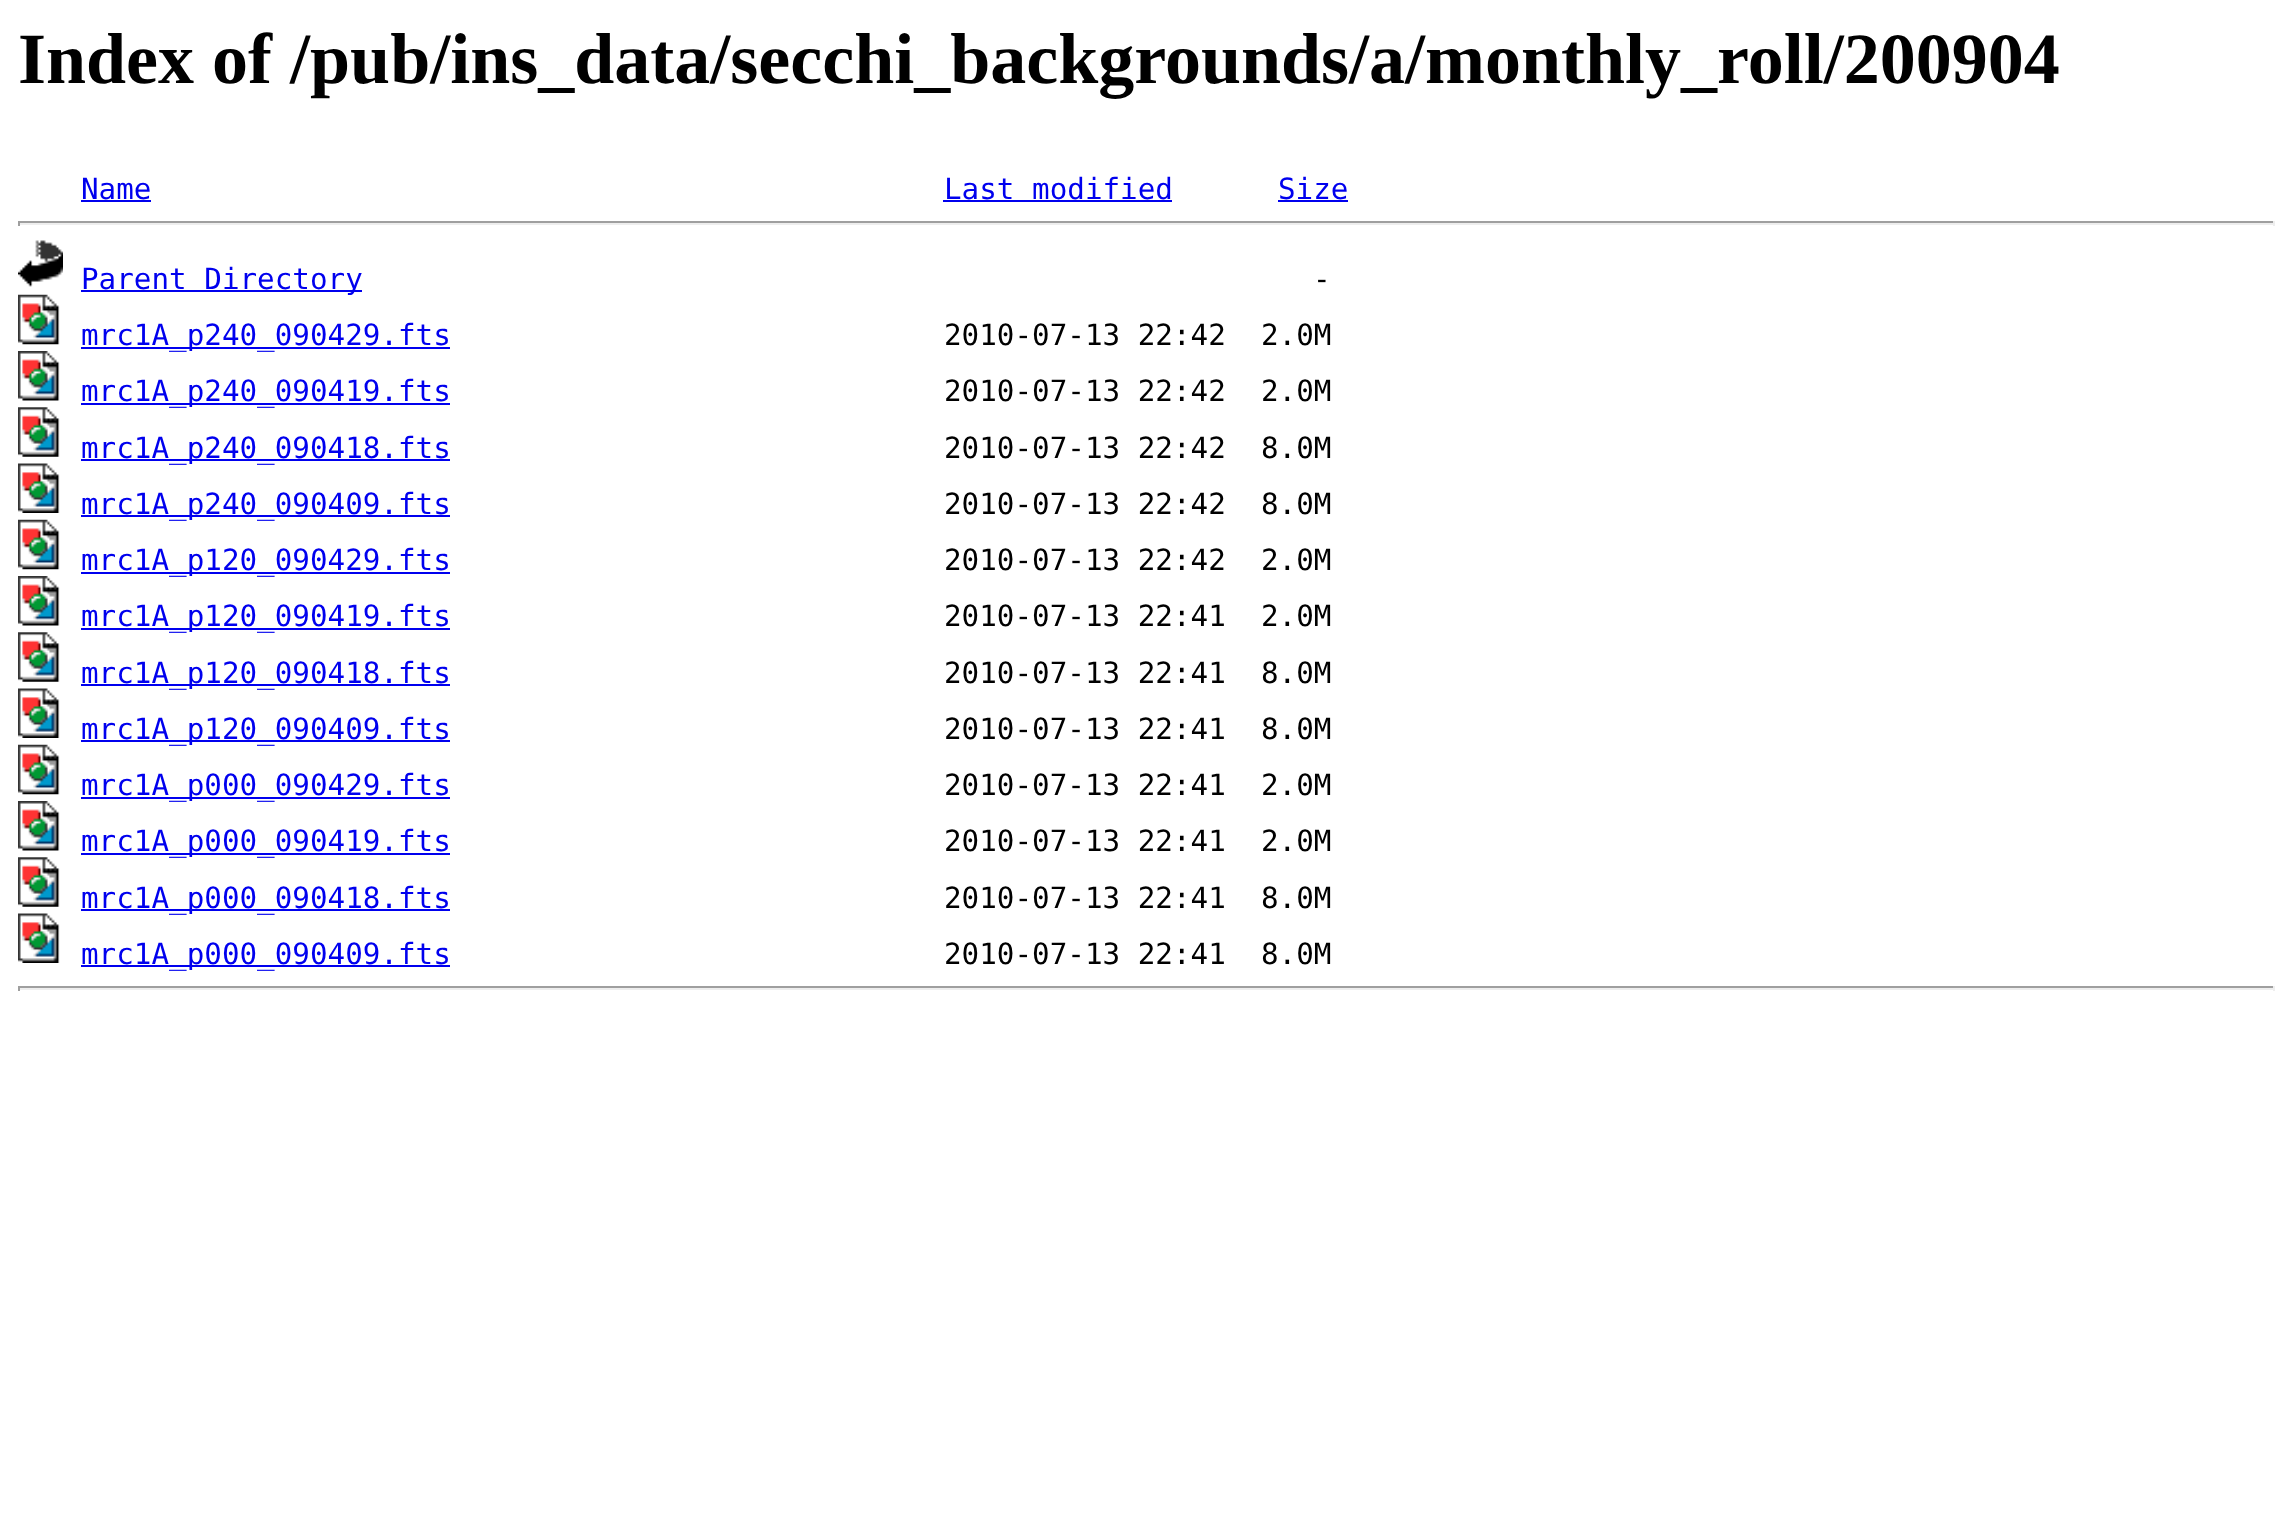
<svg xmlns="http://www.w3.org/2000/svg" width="2292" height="1519">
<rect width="100%" height="100%" fill="#fff"/>
<text x="18" y="83" style="font-family:Liberation Serif;font-size:72px;font-weight:bold;fill:#000">Index of /pub/ins_data/secchi_backgrounds/a/monthly_roll/200904</text>
<text x="81" y="199" style="font-family:DejaVu Sans Mono;font-size:29.25px;fill:#00e">Name</text>
<rect x="81" y="200" width="70" height="2" fill="#00e"/>
<text x="944" y="199" style="font-family:DejaVu Sans Mono;font-size:29.25px;fill:#00e">Last modified</text>
<rect x="943" y="200" width="229" height="2" fill="#00e"/>
<text x="1278" y="199" style="font-family:DejaVu Sans Mono;font-size:29.25px;fill:#00e">Size</text>
<rect x="1278" y="200" width="70" height="2" fill="#00e"/>
<rect x="18" y="221" width="2257" height="2" fill="#9f9f9f"/>
<rect x="2273" y="221" width="2" height="5" fill="#eee"/>
<rect x="18" y="223" width="2257" height="2" fill="#eee"/>
<rect x="18" y="221" width="2" height="5" fill="#9f9f9f"/>
<image x="18" y="240" width="45" height="47" href="media/1.png"/>
<rect x="81" y="290" width="281" height="2" fill="#00e"/>
<text x="81" y="289" style="font-family:DejaVu Sans Mono;font-size:29.25px;fill:#00e">Parent Directory</text>
<text x="1313" y="289" style="font-family:DejaVu Sans Mono;font-size:29.25px;fill:#000">-</text>
<image x="18" y="294" width="42" height="51" href="media/2.png"/>
<rect x="81" y="347" width="369" height="2" fill="#00e"/>
<text x="81" y="345" style="font-family:DejaVu Sans Mono;font-size:29.25px;fill:#00e">mrc1A_p240_090429.fts</text>
<text x="944" y="345" style="font-family:DejaVu Sans Mono;font-size:29.25px;fill:#000" xml:space="preserve">2010-07-13 22:42  2.0M</text>
<image x="18" y="351" width="42" height="50" href="media/3.png"/>
<rect x="81" y="403" width="369" height="2" fill="#00e"/>
<text x="81" y="401" style="font-family:DejaVu Sans Mono;font-size:29.25px;fill:#00e">mrc1A_p240_090419.fts</text>
<text x="944" y="401" style="font-family:DejaVu Sans Mono;font-size:29.25px;fill:#000" xml:space="preserve">2010-07-13 22:42  2.0M</text>
<image x="18" y="407" width="42" height="50" href="media/4.png"/>
<rect x="81" y="459" width="369" height="2" fill="#00e"/>
<text x="81" y="458" style="font-family:DejaVu Sans Mono;font-size:29.25px;fill:#00e">mrc1A_p240_090418.fts</text>
<text x="944" y="458" style="font-family:DejaVu Sans Mono;font-size:29.25px;fill:#000" xml:space="preserve">2010-07-13 22:42  8.0M</text>
<image x="18" y="463" width="42" height="50" href="media/5.png"/>
<rect x="81" y="515" width="369" height="2" fill="#00e"/>
<text x="81" y="514" style="font-family:DejaVu Sans Mono;font-size:29.25px;fill:#00e">mrc1A_p240_090409.fts</text>
<text x="944" y="514" style="font-family:DejaVu Sans Mono;font-size:29.25px;fill:#000" xml:space="preserve">2010-07-13 22:42  8.0M</text>
<image x="18" y="519" width="42" height="51" href="media/2.png"/>
<rect x="81" y="572" width="369" height="2" fill="#00e"/>
<text x="81" y="570" style="font-family:DejaVu Sans Mono;font-size:29.25px;fill:#00e">mrc1A_p120_090429.fts</text>
<text x="944" y="570" style="font-family:DejaVu Sans Mono;font-size:29.25px;fill:#000" xml:space="preserve">2010-07-13 22:42  2.0M</text>
<image x="18" y="576" width="42" height="50" href="media/6.png"/>
<rect x="81" y="628" width="369" height="2" fill="#00e"/>
<text x="81" y="626" style="font-family:DejaVu Sans Mono;font-size:29.25px;fill:#00e">mrc1A_p120_090419.fts</text>
<text x="944" y="626" style="font-family:DejaVu Sans Mono;font-size:29.25px;fill:#000" xml:space="preserve">2010-07-13 22:41  2.0M</text>
<image x="18" y="632" width="42" height="50" href="media/4.png"/>
<rect x="81" y="684" width="369" height="2" fill="#00e"/>
<text x="81" y="683" style="font-family:DejaVu Sans Mono;font-size:29.25px;fill:#00e">mrc1A_p120_090418.fts</text>
<text x="944" y="683" style="font-family:DejaVu Sans Mono;font-size:29.25px;fill:#000" xml:space="preserve">2010-07-13 22:41  8.0M</text>
<image x="18" y="688" width="42" height="50" href="media/5.png"/>
<rect x="81" y="740" width="369" height="2" fill="#00e"/>
<text x="81" y="739" style="font-family:DejaVu Sans Mono;font-size:29.25px;fill:#00e">mrc1A_p120_090409.fts</text>
<text x="944" y="739" style="font-family:DejaVu Sans Mono;font-size:29.25px;fill:#000" xml:space="preserve">2010-07-13 22:41  8.0M</text>
<image x="18" y="744" width="42" height="51" href="media/2.png"/>
<rect x="81" y="797" width="369" height="2" fill="#00e"/>
<text x="81" y="795" style="font-family:DejaVu Sans Mono;font-size:29.25px;fill:#00e">mrc1A_p000_090429.fts</text>
<text x="944" y="795" style="font-family:DejaVu Sans Mono;font-size:29.25px;fill:#000" xml:space="preserve">2010-07-13 22:41  2.0M</text>
<image x="18" y="801" width="42" height="50" href="media/7.png"/>
<rect x="81" y="853" width="369" height="2" fill="#00e"/>
<text x="81" y="851" style="font-family:DejaVu Sans Mono;font-size:29.25px;fill:#00e">mrc1A_p000_090419.fts</text>
<text x="944" y="851" style="font-family:DejaVu Sans Mono;font-size:29.25px;fill:#000" xml:space="preserve">2010-07-13 22:41  2.0M</text>
<image x="18" y="857" width="42" height="50" href="media/4.png"/>
<rect x="81" y="909" width="369" height="2" fill="#00e"/>
<text x="81" y="908" style="font-family:DejaVu Sans Mono;font-size:29.25px;fill:#00e">mrc1A_p000_090418.fts</text>
<text x="944" y="908" style="font-family:DejaVu Sans Mono;font-size:29.25px;fill:#000" xml:space="preserve">2010-07-13 22:41  8.0M</text>
<image x="18" y="913" width="42" height="50" href="media/5.png"/>
<rect x="81" y="965" width="369" height="2" fill="#00e"/>
<text x="81" y="964" style="font-family:DejaVu Sans Mono;font-size:29.25px;fill:#00e">mrc1A_p000_090409.fts</text>
<text x="944" y="964" style="font-family:DejaVu Sans Mono;font-size:29.25px;fill:#000" xml:space="preserve">2010-07-13 22:41  8.0M</text>
<rect x="18" y="986" width="2257" height="2" fill="#9f9f9f"/>
<rect x="2273" y="986" width="2" height="5" fill="#eee"/>
<rect x="18" y="988" width="2257" height="2" fill="#eee"/>
<rect x="18" y="986" width="2" height="5" fill="#9f9f9f"/>
</svg>
